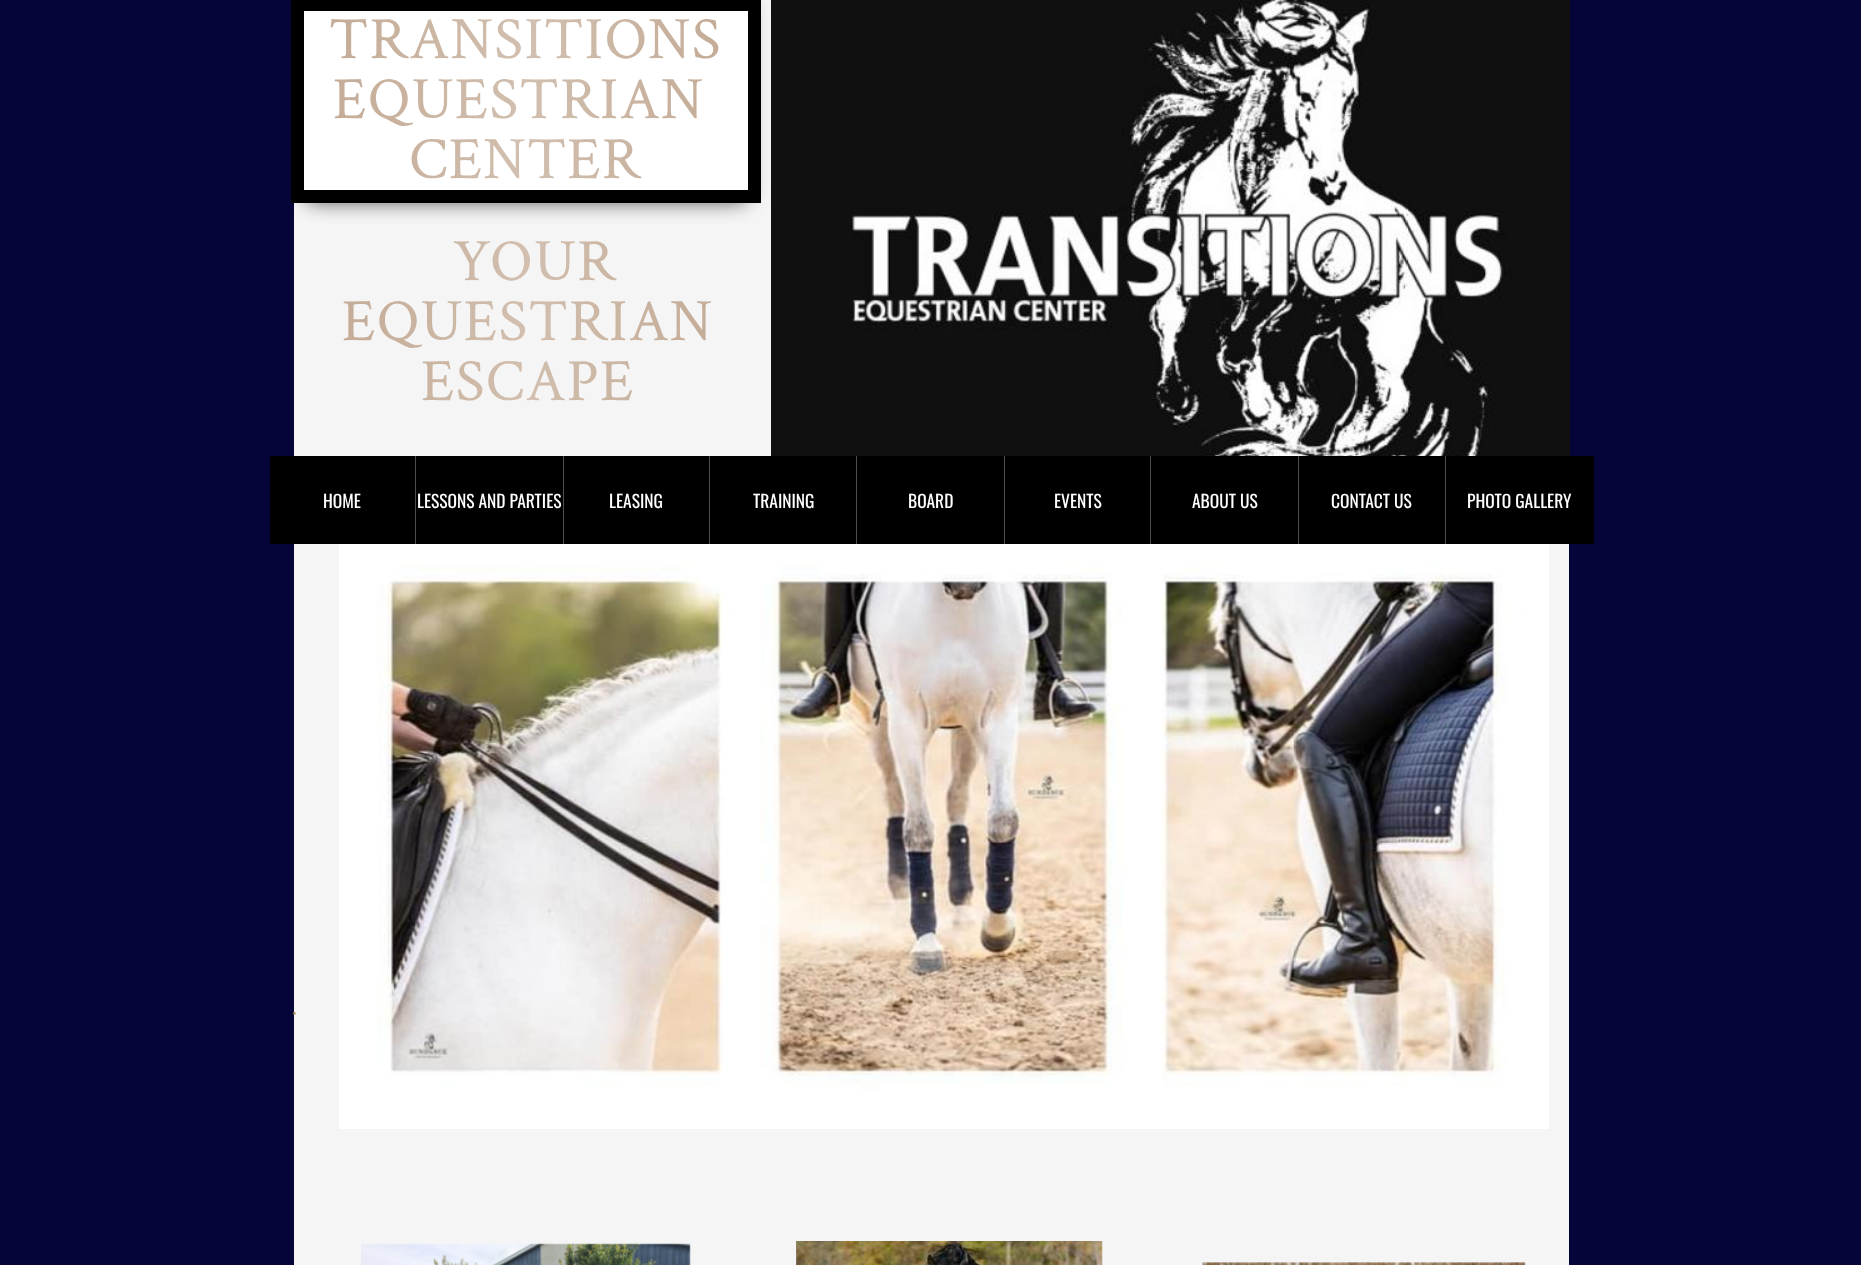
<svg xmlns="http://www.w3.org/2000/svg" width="1861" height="1265">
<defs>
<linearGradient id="g1" gradientUnits="userSpaceOnUse" x1="329" y1="39" x2="722" y2="39"><stop offset="0" stop-color="#c4ac97"/><stop offset="0.5" stop-color="#d2bfaf"/><stop offset="1" stop-color="#c4ac97"/></linearGradient>
<linearGradient id="g2" gradientUnits="userSpaceOnUse" x1="333" y1="129" x2="719" y2="129"><stop offset="0" stop-color="#c4ac97"/><stop offset="0.5" stop-color="#d2bfaf"/><stop offset="1" stop-color="#c4ac97"/></linearGradient>
<linearGradient id="g3" gradientUnits="userSpaceOnUse" x1="342" y1="322" x2="713" y2="322"><stop offset="0" stop-color="#c4ac97"/><stop offset="0.5" stop-color="#d2bfaf"/><stop offset="1" stop-color="#c4ac97"/></linearGradient>
</defs>
<rect width="100%" height="100%" fill="#05053a"/>
<rect x="293" y="1012" width="3" height="3" fill="#443744"/>
<rect x="294" width="1275" height="1265" fill="#f5f5f5"/>
<rect x="294" y="1012" width="2" height="3" fill="#d4c7b5"/>
<image x="771" y="0" width="799" height="456" href="media/1.png"/>
<rect x="304" y="-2" width="445" height="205" rx="13" fill="#00000099" filter="blur(9.5px)"/>
<rect x="297.5" y="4.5" width="457" height="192" fill="#fff" stroke="#000" stroke-width="13"/>
<text x="329" y="58" style="font-family:Crimson Text;font-size:60px;letter-spacing:1.25px;fill:url(#g1)">TRANSITIONS</text>
<text x="333" y="118" style="font-family:Crimson Text;font-size:60px;letter-spacing:1.25px;fill:url(#g2)">EQUESTRIAN</text>
<text x="409" y="178" style="font-family:Crimson Text;font-size:60px;letter-spacing:1.25px;fill:url(#g2)">CENTER</text>
<text x="453" y="280" style="font-family:Crimson Text;font-size:60px;letter-spacing:1.25px;fill:url(#g3)">YOUR</text>
<text x="342" y="340" style="font-family:Crimson Text;font-size:60px;letter-spacing:1.25px;fill:url(#g3)">EQUESTRIAN</text>
<text x="421" y="400" style="font-family:Crimson Text;font-size:60px;letter-spacing:1.25px;fill:url(#g3)">ESCAPE</text>
<rect x="270" y="456" width="145" height="88" fill="#000"/>
<rect x="415" y="456" width="1" height="88" fill="#524e4c"/>
<text x="323" y="508" style="font-family:Oswald;font-size:17.5px;fill:#fff">HOME</text>
<rect x="416" y="456" width="147" height="88" fill="#000"/>
<rect x="563" y="456" width="1" height="88" fill="#524e4c"/>
<text x="417" y="508" style="font-family:Oswald;font-size:17.5px;fill:#fff">LESSONS AND PARTIES</text>
<rect x="564" y="456" width="145" height="88" fill="#000"/>
<rect x="709" y="456" width="1" height="88" fill="#524e4c"/>
<text x="609" y="508" style="font-family:Oswald;font-size:17.5px;fill:#fff">LEASING</text>
<rect x="710" y="456" width="294" height="88" fill="#000"/>
<rect x="856" y="456" width="1" height="88" fill="#524e4c"/>
<text x="753" y="508" style="font-family:Oswald;font-size:17.5px;fill:#fff">TRAINING</text>
<rect x="1004" y="456" width="1" height="88" fill="#524e4c"/>
<text x="908" y="508" style="font-family:Oswald;font-size:17.5px;fill:#fff">BOARD</text>
<rect x="1005" y="456" width="145" height="88" fill="#000"/>
<rect x="1150" y="456" width="1" height="88" fill="#524e4c"/>
<text x="1054" y="508" style="font-family:Oswald;font-size:17.5px;fill:#fff">EVENTS</text>
<rect x="1151" y="456" width="147" height="88" fill="#000"/>
<rect x="1298" y="456" width="1" height="88" fill="#524e4c"/>
<text x="1192" y="508" style="font-family:Oswald;font-size:17.5px;fill:#fff">ABOUT US</text>
<rect x="1299" y="456" width="146" height="88" fill="#000"/>
<rect x="1445" y="456" width="1" height="88" fill="#524e4c"/>
<text x="1331" y="508" style="font-family:Oswald;font-size:17.5px;fill:#fff">CONTACT US</text>
<rect x="1446" y="456" width="148" height="88" fill="#000"/>
<text x="1467" y="508" style="font-family:Oswald;font-size:17.5px;fill:#fff">PHOTO GALLERY</text>
<image x="293" y="1012" width="2" height="2" href="media/2.png"/>
<image x="339" y="544" width="1210" height="585" href="media/3.png"/>
<image x="293" y="1012" width="2" height="2" href="media/4.png"/>
<image x="293" y="1012" width="2" height="2" href="media/5.png"/>
<image x="293" y="1012" width="2" height="2" href="media/6.png"/>
<image x="293" y="1012" width="1" height="2" href="media/7.png"/>
<image x="293" y="1012" width="1" height="2" href="media/8.png"/>
<image x="293" y="1012" width="1" height="2" href="media/9.png"/>
<image x="293" y="1012" width="1" height="2" href="media/10.png"/>
<image x="293" y="1012" width="1" height="2" href="media/11.png"/>
<image x="361" y="1243" width="330" height="22" href="media/12.png"/>
<image x="796" y="1241" width="307" height="24" href="media/13.png"/>
<image x="1202" y="1262" width="324" height="3" href="media/14.png"/>
</svg>
